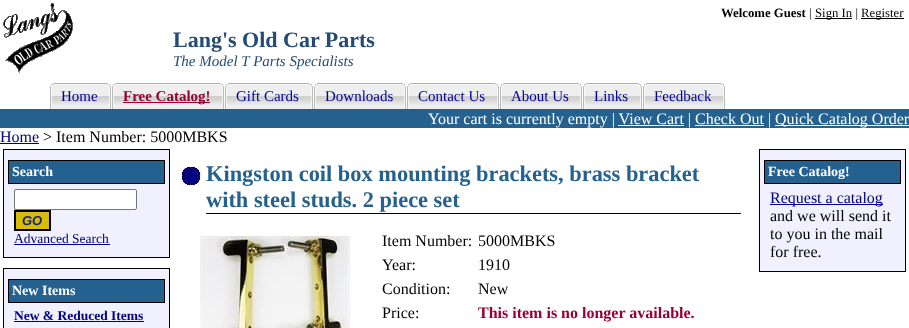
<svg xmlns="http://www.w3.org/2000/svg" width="909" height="328">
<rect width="100%" height="100%" fill="#fff"/>
<image x="3" y="3" width="70" height="70" href="media/1.png"/>
<text x="721" y="17" style="font-family:Liberation Serif;font-size:12.75px;font-weight:bold;fill:#000">Welcome Guest</text>
<text x="809" y="17" style="font-family:Liberation Serif;font-size:12.75px;fill:#000">|</text>
<rect x="815" y="18" width="37" height="1" fill="#000"/>
<text x="815" y="17" style="font-family:Liberation Serif;font-size:12.75px;fill:#000">Sign In |</text>
<rect x="861" y="18" width="43" height="1" fill="#000"/>
<text x="861" y="17" style="font-family:Liberation Serif;font-size:12.75px;fill:#000">Register</text>
<text x="173" y="47" style="font-family:Liberation Serif;font-size:22px;font-weight:bold;fill:#234b74">Lang's Old Car Parts</text>
<text x="173" y="66" style="font-family:Liberation Serif;font-size:15px;font-style:italic;fill:#234b74">The Model T Parts Specialists</text>
<image x="50" y="83" width="5" height="26" href="media/2.png"/>
<image x="55" y="83" width="56" height="26" href="media/3.png"/>
<text x="61" y="101" style="font-family:Liberation Serif;font-size:15px;fill:#009">Home</text>
<image x="112" y="83" width="5" height="26" href="media/2.png"/>
<image x="117" y="83" width="107" height="26" href="media/4.png"/>
<rect x="123" y="102" width="87" height="1" fill="#903"/>
<text x="123" y="101" style="font-family:Liberation Serif;font-size:15px;font-weight:bold;fill:#903">Free Catalog!</text>
<image x="225" y="83" width="5" height="26" href="media/2.png"/>
<image x="230" y="83" width="83" height="26" href="media/5.png"/>
<text x="236" y="101" style="font-family:Liberation Serif;font-size:15px;fill:#009">Gift Cards</text>
<image x="314" y="83" width="5" height="26" href="media/2.png"/>
<image x="319" y="83" width="87" height="26" href="media/6.png"/>
<text x="325" y="101" style="font-family:Liberation Serif;font-size:15px;fill:#009">Downloads</text>
<image x="407" y="83" width="5" height="26" href="media/2.png"/>
<image x="412" y="83" width="87" height="26" href="media/7.png"/>
<text x="418" y="101" style="font-family:Liberation Serif;font-size:15px;fill:#009">Contact Us</text>
<image x="500" y="83" width="5" height="26" href="media/2.png"/>
<image x="505" y="83" width="77" height="26" href="media/8.png"/>
<text x="511" y="101" style="font-family:Liberation Serif;font-size:15px;fill:#009">About Us</text>
<image x="583" y="83" width="5" height="26" href="media/2.png"/>
<image x="588" y="83" width="54" height="26" href="media/9.png"/>
<text x="594" y="101" style="font-family:Liberation Serif;font-size:15px;fill:#009">Links</text>
<image x="643" y="83" width="5" height="26" href="media/2.png"/>
<image x="648" y="83" width="77" height="26" href="media/10.png"/>
<text x="654" y="101" style="font-family:Liberation Serif;font-size:15px;fill:#009">Feedback</text>
<rect y="109" width="909" height="19" fill="#24618e"/>
<text x="428" y="124" style="font-family:Liberation Serif;font-size:16px;fill:#fff">Your cart is currently empty | View Cart | Check Out |</text>
<rect x="775" y="125" width="134" height="1" fill="#fff"/>
<text x="775" y="124" style="font-family:Liberation Serif;font-size:16px;fill:#fff">Quick Catalog Order</text>
<rect x="618" y="125" width="66" height="1" fill="#fff"/>
<rect x="695" y="125" width="69" height="1" fill="#fff"/>
<text x="0" y="142" style="font-family:Liberation Serif;font-size:16px;fill:#000080">Home</text>
<rect y="143" width="39" height="1" fill="#000080"/>
<text x="43" y="142" style="font-family:Liberation Serif;font-size:16px;fill:#000">&gt; Item Number: 5000MBKS</text>
<rect x="3.5" y="149.5" width="166" height="108" fill="#f0f0ff" stroke="#000"/>
<rect x="8.5" y="160.5" width="156" height="23" fill="#24618e" stroke="#000"/>
<text x="12" y="176" style="font-family:Liberation Serif;font-size:14px;font-weight:bold;fill:#fff">Search</text>
<rect x="14.5" y="189.5" width="122" height="20" rx="1.5" fill="#fff" stroke="#767676"/>
<rect x="15" y="211" width="35" height="19" fill="#d9bb0c" stroke="#000" stroke-width="2"/>
<text x="22" y="225" style="font-family:Liberation Sans;font-size:13px;font-weight:bold;font-style:italic;fill:#1a256f">GO</text>
<text x="14" y="243" style="font-family:Liberation Serif;font-size:13.5px;fill:#000080">Advanced Search</text>
<rect x="14" y="244" width="96" height="1" fill="#000080"/>
<rect x="3.5" y="268.5" width="166" height="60" fill="#f0f0ff" stroke="#000"/>
<rect x="8.5" y="279.5" width="156" height="23" fill="#24618e" stroke="#000"/>
<text x="12" y="295" style="font-family:Liberation Serif;font-size:14px;font-weight:bold;fill:#fff">New Items</text>
<text x="14" y="320" style="font-family:Liberation Serif;font-size:13.5px;font-weight:bold;fill:#000080">New &amp; Reduced Items</text>
<rect x="14" y="321" width="130" height="1" fill="#000080"/>
<image x="181" y="166" width="20" height="20" href="media/11.png"/>
<rect x="206" y="213" width="535" height="1" fill="#000"/>
<text x="206" y="181" style="font-family:Liberation Serif;font-size:22.4px;font-weight:bold;fill:#24618e">Kingston coil box mounting brackets, brass bracket</text>
<text x="206" y="207" style="font-family:Liberation Serif;font-size:22.4px;font-weight:bold;fill:#24618e">with steel studs. 2 piece set</text>
<image x="200" y="236" width="150" height="92" href="media/12.png"/>
<text x="382" y="246" style="font-family:Liberation Serif;font-size:16px;fill:#000">Item Number:</text>
<text x="478" y="246" style="font-family:Liberation Serif;font-size:16px;fill:#000">5000MBKS</text>
<text x="382" y="270" style="font-family:Liberation Serif;font-size:16px;fill:#000">Year:</text>
<text x="478" y="270" style="font-family:Liberation Serif;font-size:16px;fill:#000">1910</text>
<text x="382" y="294" style="font-family:Liberation Serif;font-size:16px;fill:#000">Condition:</text>
<text x="478" y="294" style="font-family:Liberation Serif;font-size:16px;fill:#000">New</text>
<text x="382" y="318" style="font-family:Liberation Serif;font-size:16px;fill:#000">Price:</text>
<text x="478" y="318" style="font-family:Liberation Serif;font-size:16px;font-weight:bold;fill:#903">This item is no longer available.</text>
<rect x="759.5" y="149.5" width="146" height="122" fill="#f0f0ff" stroke="#000"/>
<rect x="764.5" y="160.5" width="136" height="23" fill="#24618e" stroke="#000"/>
<text x="768" y="176" style="font-family:Liberation Serif;font-size:14px;font-weight:bold;fill:#fff">Free Catalog!</text>
<rect x="770" y="204" width="113" height="1" fill="#000080"/>
<text x="770" y="203" style="font-family:Liberation Serif;font-size:16px;fill:#000080">Request a catalog</text>
<text x="770" y="221" style="font-family:Liberation Serif;font-size:16px;fill:#000">and we will send it</text>
<text x="770" y="239" style="font-family:Liberation Serif;font-size:16px;fill:#000">to you in the mail</text>
<text x="770" y="257" style="font-family:Liberation Serif;font-size:16px;fill:#000">for free.</text>
</svg>
